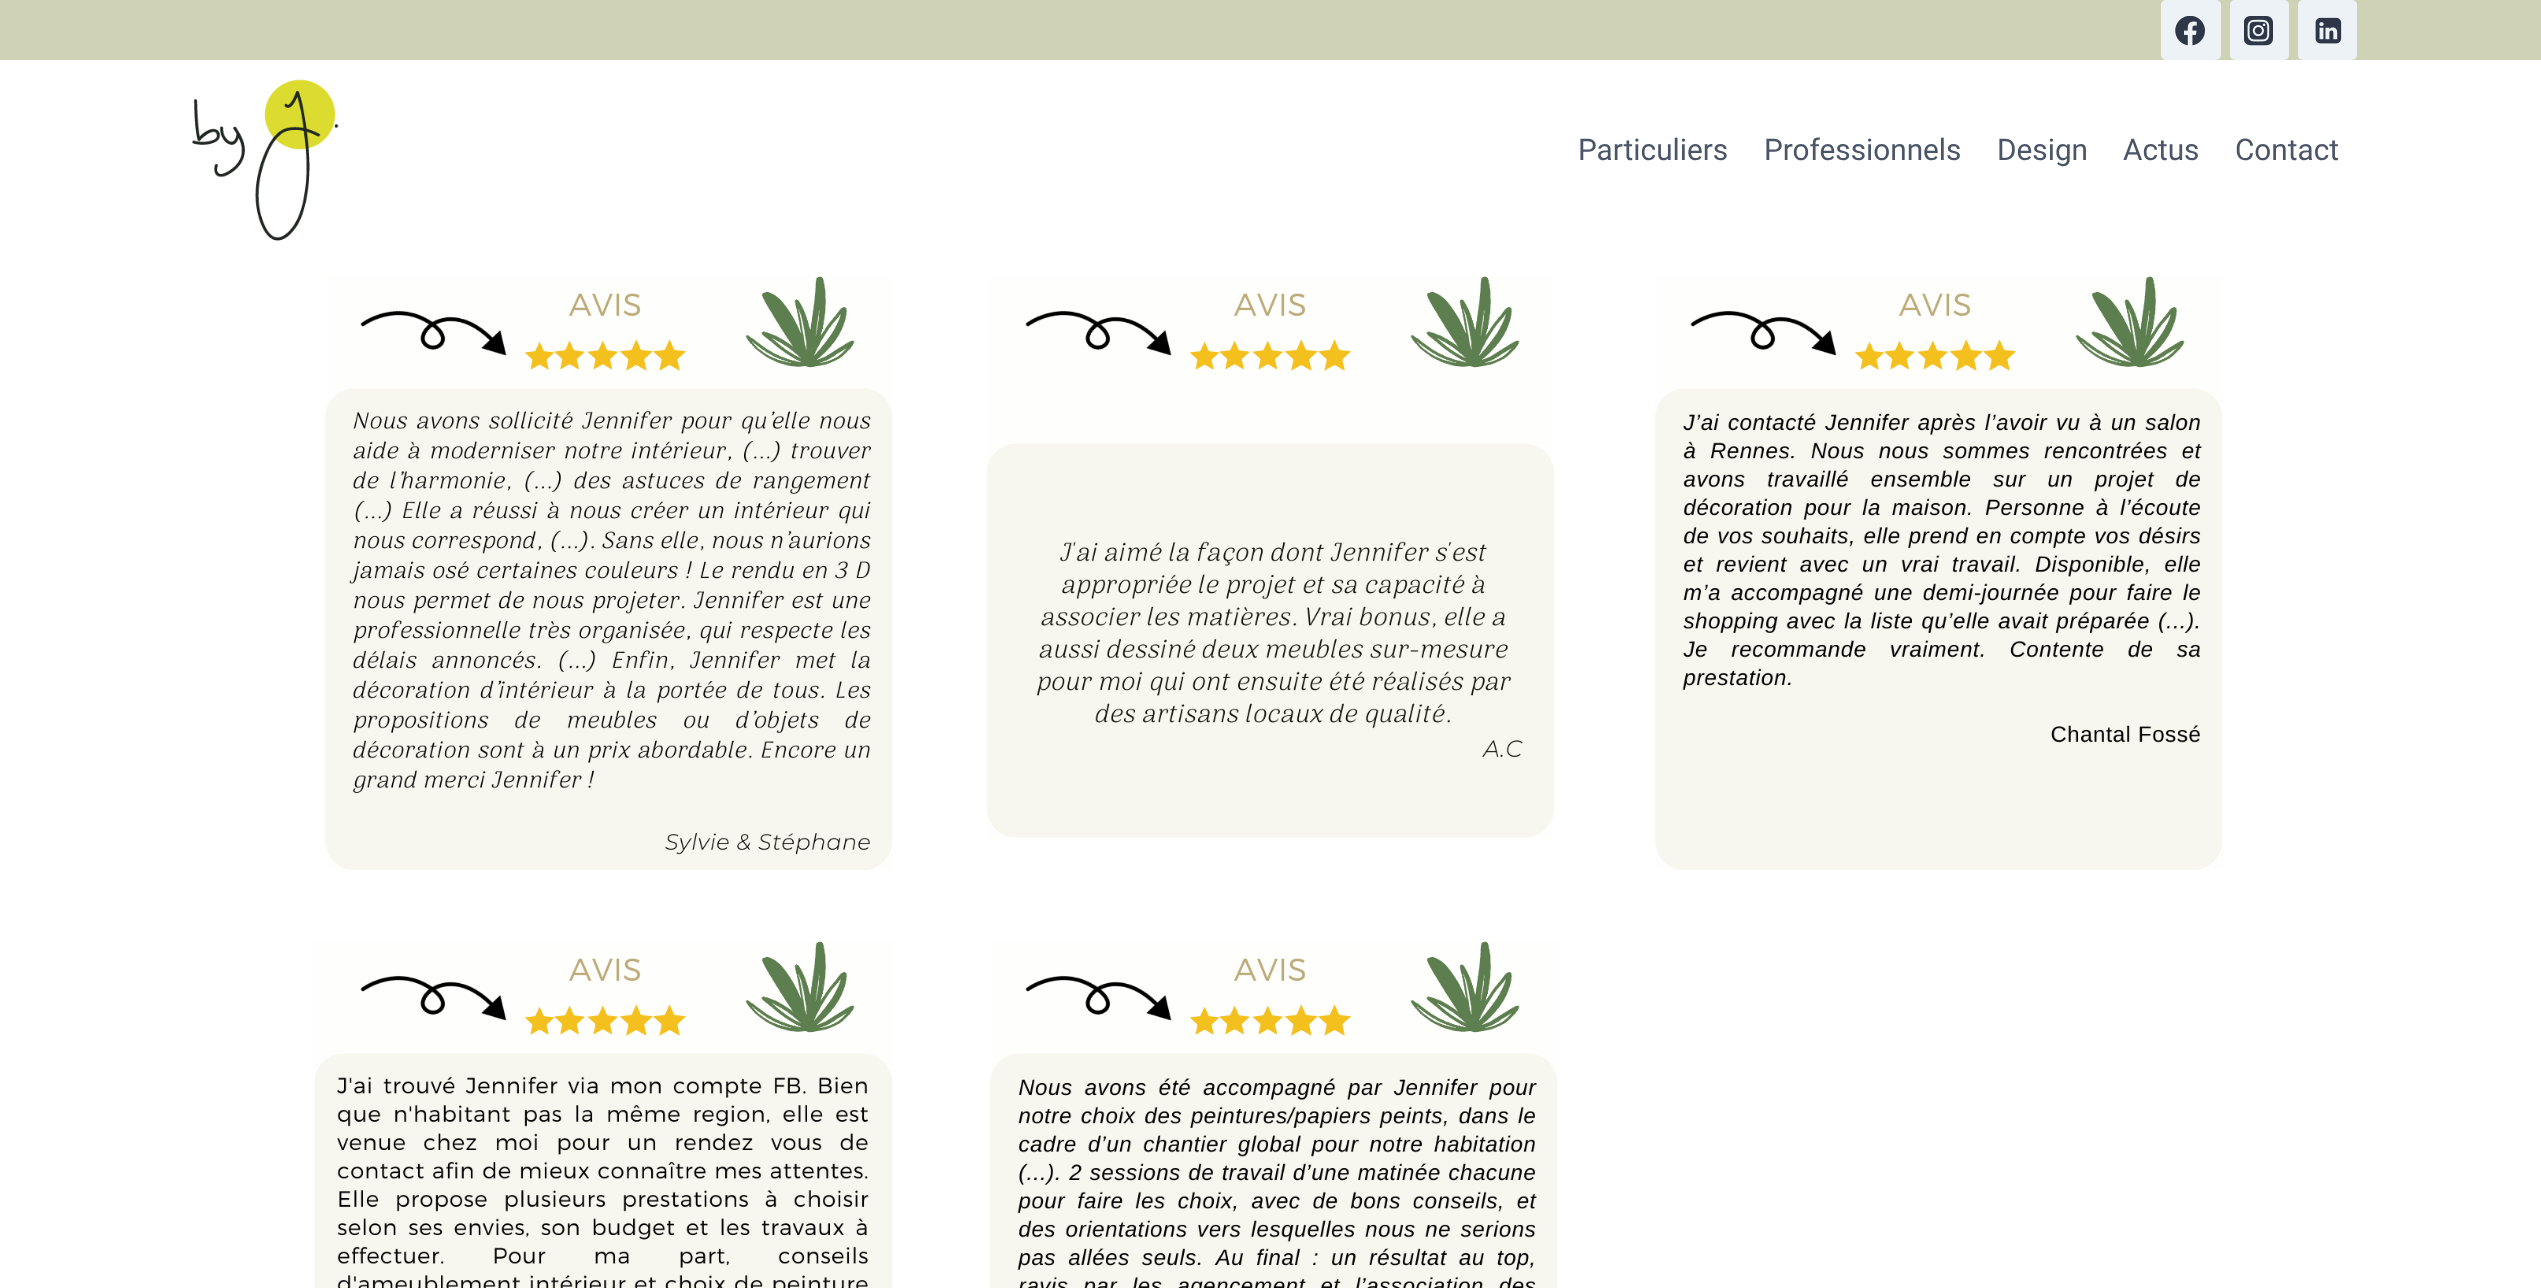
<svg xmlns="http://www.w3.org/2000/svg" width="2541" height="1288">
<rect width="100%" height="100%" fill="#fff"/>
<rect width="2541" height="60" fill="#cfd2b5"/>
<rect x="2161" width="60" height="60" rx="5" fill="#edf2f7"/>
<image x="2175" y="16" width="30" height="30" href="media/1.png"/>
<rect x="2230" width="59" height="60" rx="5" fill="#edf2f7"/>
<image x="2244" y="16" width="29" height="30" href="media/2.png"/>
<rect x="2298" width="59" height="60" rx="5" fill="#edf2f7"/>
<image x="2315" y="17" width="27" height="27" href="media/3.png"/>
<image x="192" y="79" width="147" height="162" href="media/4.png"/>
<text x="1578" y="160" style="font-family:Roboto;font-size:29.75px;fill:#4a5568">Particuliers</text>
<text x="1764" y="160" style="font-family:Roboto;font-size:29.75px;fill:#4a5568">Professionnels</text>
<text x="1997" y="160" style="font-family:Roboto;font-size:29.75px;fill:#4a5568">Design</text>
<text x="2123" y="160" style="font-family:Roboto;font-size:29.75px;fill:#4a5568">Actus</text>
<text x="2235" y="160" style="font-family:Roboto;font-size:29.75px;fill:#4a5568">Contact</text>
<image x="325" y="276" width="568" height="594" href="media/5.png"/>
<image x="987" y="276" width="567" height="562" href="media/6.png"/>
<image x="1655" y="276" width="568" height="594" href="media/7.png"/>
<image x="314" y="941" width="579" height="347" href="media/8.png"/>
<image x="990" y="941" width="568" height="347" href="media/9.png"/>
</svg>
